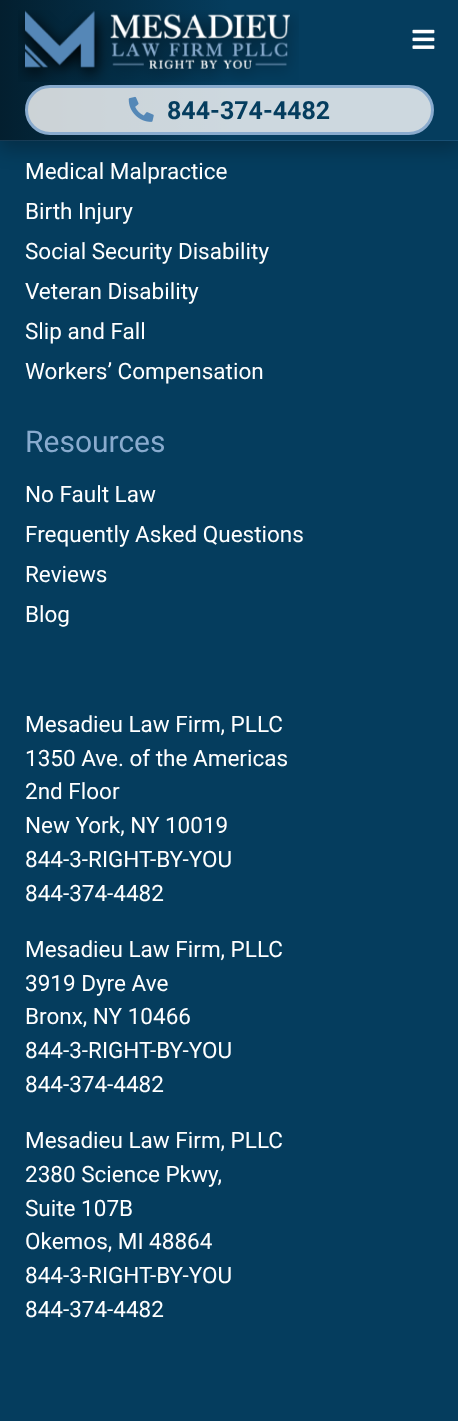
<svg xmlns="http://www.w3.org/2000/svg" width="458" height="1421">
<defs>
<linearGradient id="g1" gradientUnits="userSpaceOnUse" x1="0" y1="70" x2="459" y2="70"><stop offset="0" stop-color="#031f2f"/><stop offset="0.5" stop-color="#053d5e"/><stop offset="1" stop-color="#053d5e"/></linearGradient>
</defs>
<rect width="100%" height="100%" fill="#053d5e"/>
<rect x="-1" y="5" width="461" height="144" fill="#00000040" filter="blur(9.5px)"/>
<rect width="458" height="141" fill="url(#g1)"/>
<rect y="140" width="458" height="1" fill="#5588b740"/>
<image x="18" y="10" width="281" height="72" href="media/1.png"/>
<image x="412" y="29" width="23" height="20" href="media/2.png"/>
<rect x="26.5" y="86.5" width="406" height="47" rx="23.5" fill="#ffffffcc" stroke="#89abce" stroke-width="3"/>
<image x="128" y="96" width="26" height="26" href="media/3.png"/>
<text x="167" y="119" style="font-family:Roboto;font-size:25px;font-weight:bold;fill:#053d5e">844-374-4482</text>
<text x="25" y="179" style="font-family:Roboto;font-size:22.5px;fill:#fff">Medical Malpractice</text>
<text x="25" y="219" style="font-family:Roboto;font-size:22.5px;fill:#fff">Birth Injury</text>
<text x="25" y="259" style="font-family:Roboto;font-size:22.5px;fill:#fff">Social Security Disability</text>
<text x="25" y="299" style="font-family:Roboto;font-size:22.5px;fill:#fff">Veteran Disability</text>
<text x="25" y="339" style="font-family:Roboto;font-size:22.5px;fill:#fff">Slip and Fall</text>
<text x="25" y="379" style="font-family:Roboto;font-size:22.5px;fill:#fff">Workers’ Compensation</text>
<text x="25" y="452" style="font-family:Roboto;font-size:30px;fill:#89abce">Resources</text>
<text x="25" y="502" style="font-family:Roboto;font-size:22.5px;fill:#fff">No Fault Law</text>
<text x="25" y="542" style="font-family:Roboto;font-size:22.5px;fill:#fff">Frequently Asked Questions</text>
<text x="25" y="582" style="font-family:Roboto;font-size:22.5px;fill:#fff">Reviews</text>
<text x="25" y="622" style="font-family:Roboto;font-size:22.5px;fill:#fff">Blog</text>
<text x="25" y="732" style="font-family:Roboto;font-size:22.5px;fill:#fff">Mesadieu Law Firm, PLLC</text>
<text x="25" y="766" style="font-family:Roboto;font-size:22.5px;fill:#fff">1350 Ave. of the Americas</text>
<text x="25" y="799" style="font-family:Roboto;font-size:22.5px;fill:#fff">2nd Floor</text>
<text x="25" y="833" style="font-family:Roboto;font-size:22.5px;fill:#fff">New York, NY 10019</text>
<text x="25" y="867" style="font-family:Roboto;font-size:22.5px;fill:#fff">844-3-RIGHT-BY-YOU</text>
<text x="25" y="901" style="font-family:Roboto;font-size:22.5px;fill:#fff">844-374-4482</text>
<text x="25" y="957" style="font-family:Roboto;font-size:22.5px;fill:#fff">Mesadieu Law Firm, PLLC</text>
<text x="25" y="991" style="font-family:Roboto;font-size:22.5px;fill:#fff">3919 Dyre Ave</text>
<text x="25" y="1024" style="font-family:Roboto;font-size:22.5px;fill:#fff">Bronx, NY 10466</text>
<text x="25" y="1058" style="font-family:Roboto;font-size:22.5px;fill:#fff">844-3-RIGHT-BY-YOU</text>
<text x="25" y="1092" style="font-family:Roboto;font-size:22.5px;fill:#fff">844-374-4482</text>
<text x="25" y="1148" style="font-family:Roboto;font-size:22.5px;fill:#fff">Mesadieu Law Firm, PLLC</text>
<text x="25" y="1182" style="font-family:Roboto;font-size:22.5px;fill:#fff">2380 Science Pkwy,</text>
<text x="25" y="1216" style="font-family:Roboto;font-size:22.5px;fill:#fff">Suite 107B</text>
<text x="25" y="1249" style="font-family:Roboto;font-size:22.5px;fill:#fff">Okemos, MI 48864</text>
<text x="25" y="1283" style="font-family:Roboto;font-size:22.5px;fill:#fff">844-3-RIGHT-BY-YOU</text>
<text x="25" y="1317" style="font-family:Roboto;font-size:22.5px;fill:#fff">844-374-4482</text>
</svg>
